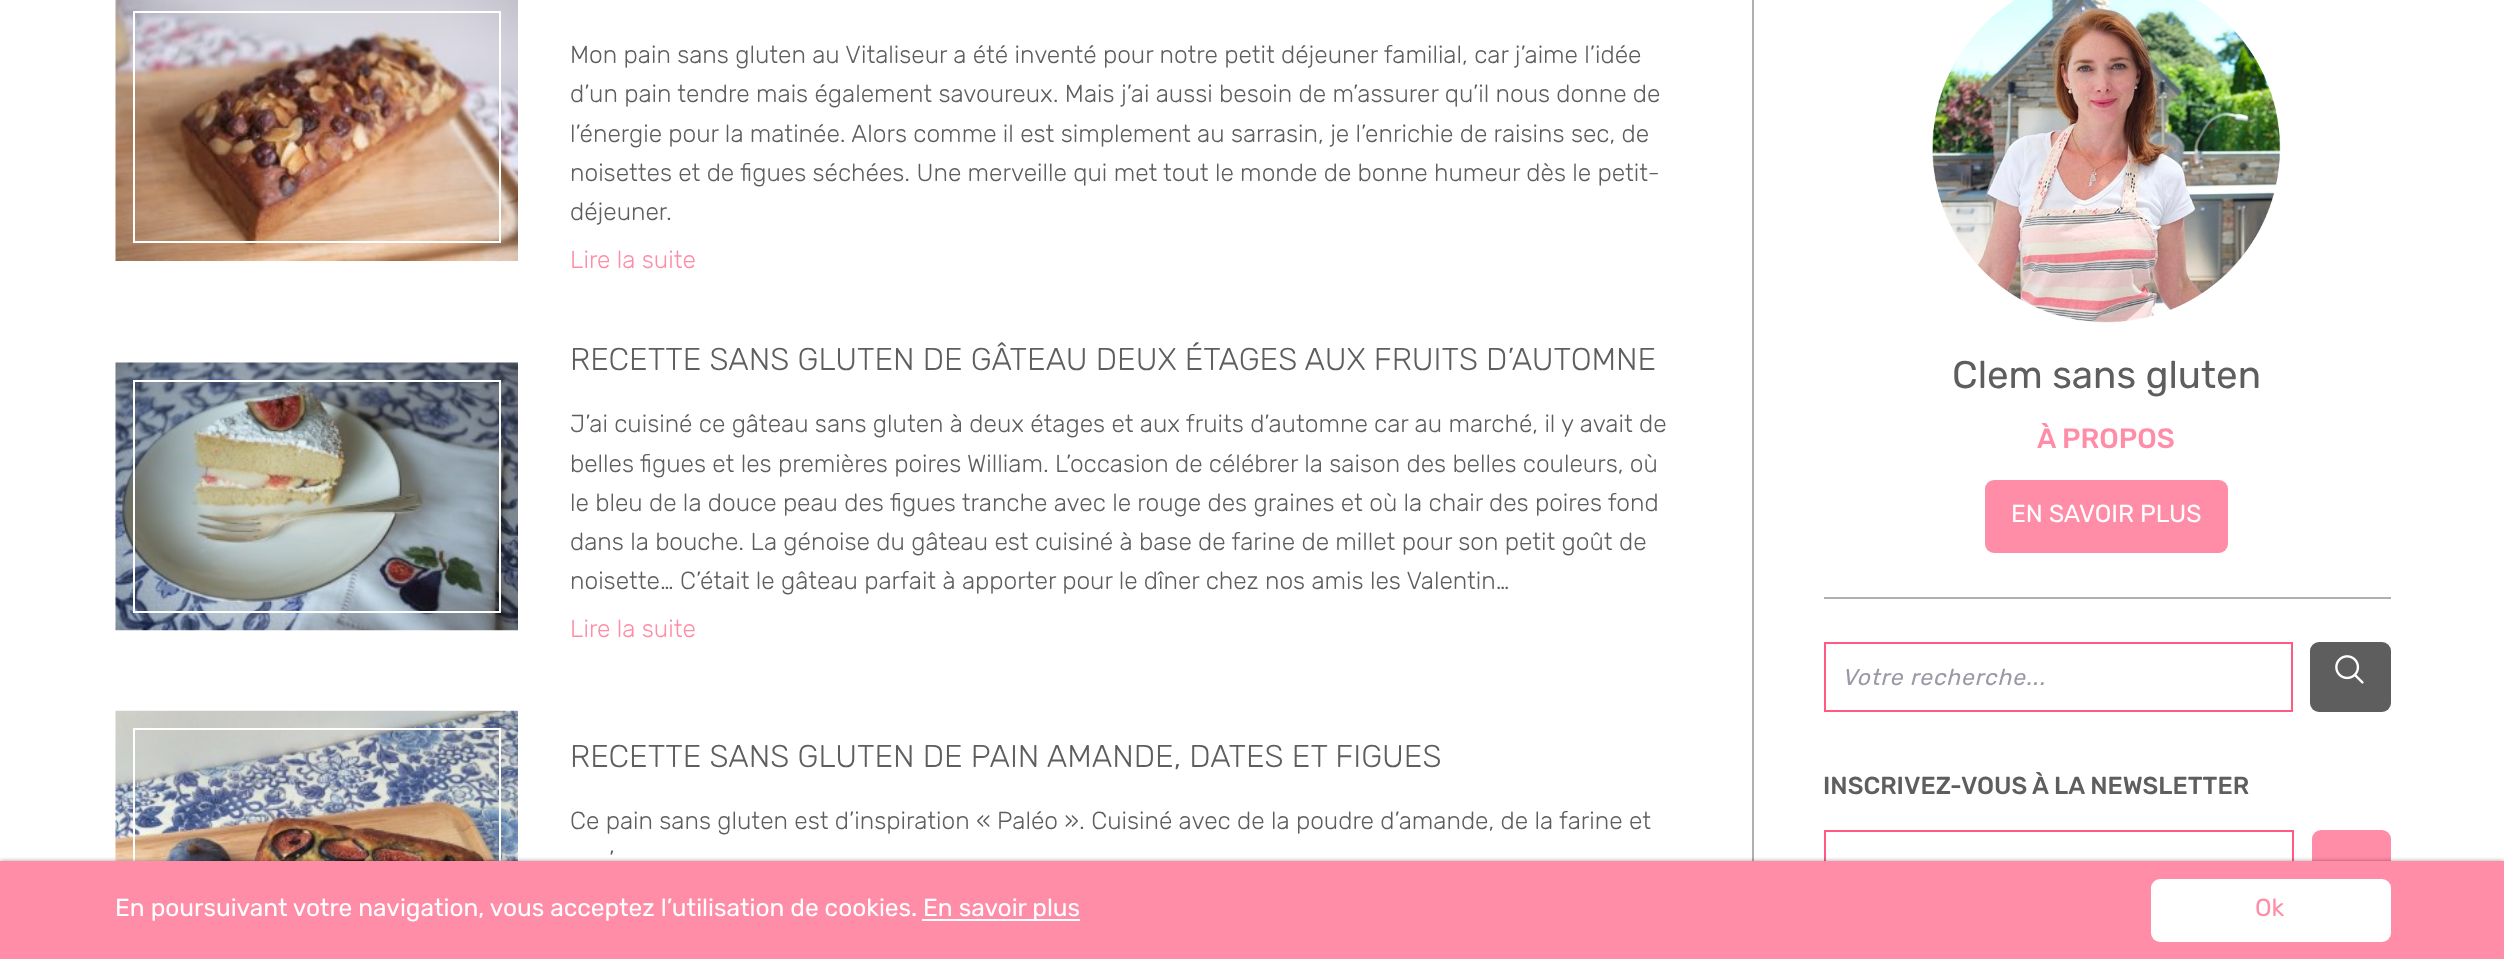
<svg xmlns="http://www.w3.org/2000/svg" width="2504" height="959">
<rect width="100%" height="100%" fill="#fff"/>
<rect x="1752" width="2" height="861" fill="#afafaf"/>
<image x="115" y="0" width="403" height="261" href="media/1.png"/>
<rect x="134" y="12" width="366" height="230" fill="none" stroke="#fff" stroke-width="2"/>
<text x="570" y="63" style="font-family:Rubik;font-size:24.5px;font-weight:300;fill:#5f5e5e">Mon pain sans gluten au Vitaliseur a été inventé pour notre petit déjeuner familial, car j’aime l’idée</text>
<text x="570" y="102" style="font-family:Rubik;font-size:24.5px;font-weight:300;fill:#5f5e5e">d’un pain tendre mais également savoureux. Mais j’ai aussi besoin de m’assurer qu’il nous donne de</text>
<text x="570" y="142" style="font-family:Rubik;font-size:24.5px;font-weight:300;fill:#5f5e5e">l’énergie pour la matinée. Alors comme il est simplement au sarrasin, je l’enrichie de raisins sec, de</text>
<text x="570" y="181" style="font-family:Rubik;font-size:24.5px;font-weight:300;fill:#5f5e5e">noisettes et de figues séchées. Une merveille qui met tout le monde de bonne humeur dès le petit-</text>
<text x="570" y="220" style="font-family:Rubik;font-size:24.5px;font-weight:300;fill:#5f5e5e">déjeuner.</text>
<text x="570" y="268" style="font-family:Rubik;font-size:24.5px;font-weight:300;fill:#ff8da8">Lire la suite</text>
<image x="115" y="362" width="403" height="269" href="media/2.png"/>
<rect x="134" y="381" width="366" height="231" fill="none" stroke="#fff" stroke-width="2"/>
<text x="570" y="370" style="font-family:Rubik;font-size:31.5px;font-weight:300;fill:#5f5e5e">RECETTE SANS GLUTEN DE GÂTEAU DEUX ÉTAGES AUX FRUITS D’AUTOMNE</text>
<text x="570" y="432" style="font-family:Rubik;font-size:24.5px;font-weight:300;fill:#5f5e5e">J’ai cuisiné ce gâteau sans gluten à deux étages et aux fruits d’automne car au marché, il y avait de</text>
<text x="570" y="472" style="font-family:Rubik;font-size:24.5px;font-weight:300;fill:#5f5e5e">belles figues et les premières poires William. L’occasion de célébrer la saison des belles couleurs, où</text>
<text x="570" y="511" style="font-family:Rubik;font-size:24.5px;font-weight:300;fill:#5f5e5e">le bleu de la douce peau des figues tranche avec le rouge des graines et où la chair des poires fond</text>
<text x="570" y="550" style="font-family:Rubik;font-size:24.5px;font-weight:300;fill:#5f5e5e">dans la bouche. La génoise du gâteau est cuisiné à base de farine de millet pour son petit goût de</text>
<text x="570" y="589" style="font-family:Rubik;font-size:24.5px;font-weight:300;fill:#5f5e5e">noisette… C’était le gâteau parfait à apporter pour le dîner chez nos amis les Valentin…</text>
<text x="570" y="637" style="font-family:Rubik;font-size:24.5px;font-weight:300;fill:#ff8da8">Lire la suite</text>
<image x="115" y="710" width="403" height="151" href="media/3.png"/>
<rect x="134" y="729" width="366" height="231" fill="none" stroke="#fff" stroke-width="2"/>
<text x="570" y="767" style="font-family:Rubik;font-size:31.5px;font-weight:300;fill:#5f5e5e">RECETTE SANS GLUTEN DE PAIN AMANDE, DATES ET FIGUES</text>
<text x="570" y="829" style="font-family:Rubik;font-size:24.5px;font-weight:300;fill:#5f5e5e">Ce pain sans gluten est d’inspiration « Paléo ». Cuisiné avec de la poudre d’amande, de la farine et</text>
<text x="609" y="868" style="font-family:Rubik;font-size:24.5px;font-weight:300;fill:#5f5e5e">’</text>
<rect x="1824" y="597" width="567" height="2" fill="#afafaf"/>
<image x="1932" y="0" width="349" height="323" href="media/4.png"/>
<text x="1952" y="388" style="font-family:Rubik;font-size:38.5px;fill:#5f5e5e">Clem sans gluten</text>
<text x="2037" y="448" style="font-family:Rubik;font-size:28px;font-weight:500;fill:#ff8da8">À PROPOS</text>
<rect x="1985" y="480" width="243" height="73" rx="9" fill="#ff8da8"/>
<text x="2011" y="522" style="font-family:Rubik;font-size:24.5px;fill:#fff">EN SAVOIR PLUS</text>
<rect x="1825" y="643" width="467" height="68" fill="none" stroke="#ff5a81" stroke-width="2"/>
<text x="1842" y="685" style="font-family:Rubik;font-size:22.75px;font-style:italic;letter-spacing:0.9px;fill:#9999a7">Votre recherche...</text>
<rect x="2310" y="642" width="81" height="70" rx="9" fill="#5f5e5e"/>
<image x="2335" y="655" width="29" height="29" href="media/5.png"/>
<text x="1823" y="794" style="font-family:Rubik;font-size:24.5px;font-weight:500;fill:#5f5e5e">INSCRIVEZ-VOUS À LA NEWSLETTER</text>
<rect x="1825" y="831" width="468" height="68" fill="none" stroke="#ff5a81" stroke-width="2"/>
<rect x="2312" y="830" width="79" height="70" rx="9" fill="#ff8da8"/>
<rect y="861" width="2504" height="98" fill="#00000066" filter="blur(2px)"/>
<rect y="861" width="2504" height="98" fill="#ff8da8"/>
<text x="115" y="916" style="font-family:Rubik;font-size:24.5px;fill:#fff">En poursuivant votre navigation, vous acceptez l’utilisation de cookies.</text>
<rect x="922" y="919" width="158" height="2" fill="#fff"/>
<text x="923" y="916" style="font-family:Rubik;font-size:24.5px;fill:#fff">En savoir plus</text>
<rect x="2151" y="879" width="240" height="63" rx="9" fill="#fff"/>
<text x="2255" y="916" style="font-family:Rubik;font-size:24.5px;fill:#ff8da8">Ok</text>
</svg>
